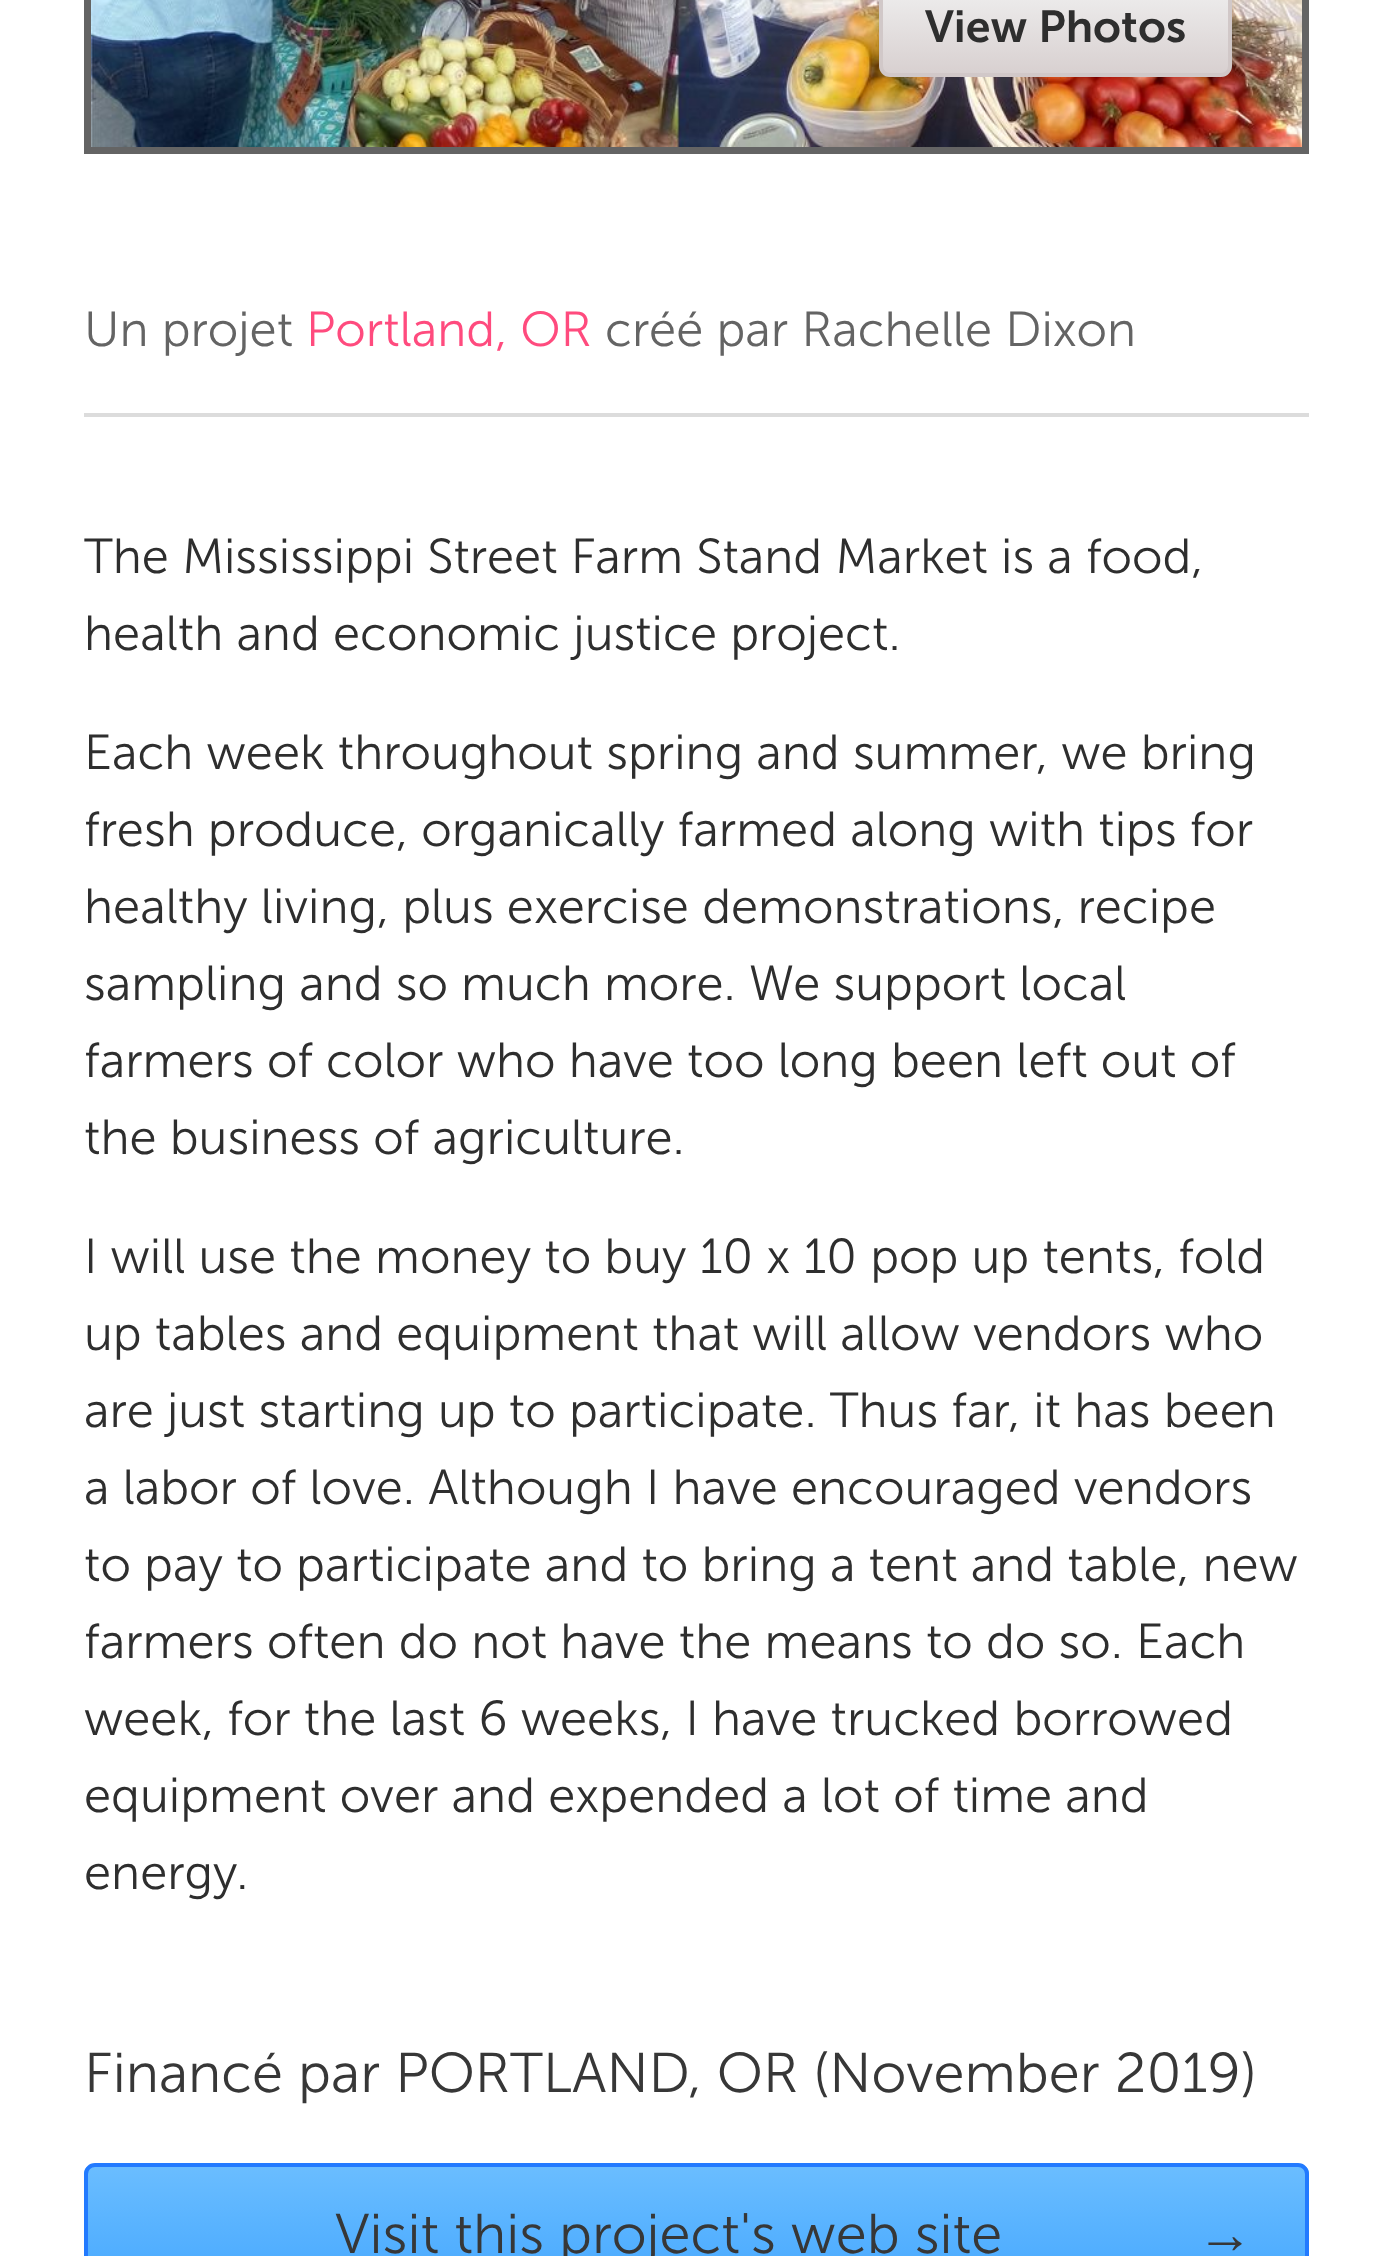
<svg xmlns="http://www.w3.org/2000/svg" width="1391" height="2256">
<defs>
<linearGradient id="g1" gradientUnits="userSpaceOnUse" x1="1055" y1="-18" x2="1055" y2="74"><stop offset="0" stop-color="#f0f0f0"/><stop offset="1" stop-color="#d8d0d0"/></linearGradient>
<clipPath id="clip1"><rect x="84" y="2163" width="1225" height="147" rx="11"/></clipPath>
<linearGradient id="g2" gradientUnits="userSpaceOnUse" x1="697" y1="2167" x2="697" y2="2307"><stop offset="0" stop-color="#6abdff"/><stop offset="1" stop-color="#41a5ff"/></linearGradient>
</defs>
<rect width="100%" height="100%" fill="#fff"/>
<rect x="84" width="1225" height="154" fill="#646464"/>
<image x="91" y="0" width="1211" height="147" href="media/1.png"/>
<rect x="882" y="-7" width="347" height="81" rx="7" fill="url(#g1)"/>
<rect x="881" y="-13" width="349" height="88" rx="9" fill="none" stroke="#d1c8c8" stroke-width="4"/>
<text x="925" y="42" style="font-family:'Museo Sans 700';font-size:44.75px;font-weight:600;fill:#2e2e2e">View Photos</text>
<rect x="84" y="413" width="1225" height="4" fill="#dcdcdc"/>
<text x="84" y="346" style="font-family:'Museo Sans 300';font-size:49px;font-weight:300;fill:#646464">Un projet</text>
<text x="306" y="346" style="font-family:'Museo Sans 300';font-size:49px;font-weight:300;fill:#ff4b7e">Portland, OR</text>
<text x="605" y="346" style="font-family:'Museo Sans 300';font-size:49px;font-weight:300;fill:#646464">créé par Rachelle Dixon</text>
<text x="84" y="573" style="font-family:'Museo Sans 300';font-size:49px;font-weight:300;fill:#2e2e2e">The Mississippi Street Farm Stand Market is a food,</text>
<text x="84" y="650" style="font-family:'Museo Sans 300';font-size:49px;font-weight:300;fill:#2e2e2e">health and economic justice project.</text>
<text x="84" y="769" style="font-family:'Museo Sans 300';font-size:49px;font-weight:300;fill:#2e2e2e">Each week throughout spring and summer, we bring</text>
<text x="84" y="846" style="font-family:'Museo Sans 300';font-size:49px;font-weight:300;fill:#2e2e2e">fresh produce, organically farmed along with tips for</text>
<text x="84" y="923" style="font-family:'Museo Sans 300';font-size:49px;font-weight:300;fill:#2e2e2e">healthy living, plus exercise demonstrations, recipe</text>
<text x="84" y="1000" style="font-family:'Museo Sans 300';font-size:49px;font-weight:300;fill:#2e2e2e">sampling and so much more. We support local</text>
<text x="84" y="1077" style="font-family:'Museo Sans 300';font-size:49px;font-weight:300;fill:#2e2e2e">farmers of color who have too long been left out of</text>
<text x="84" y="1154" style="font-family:'Museo Sans 300';font-size:49px;font-weight:300;fill:#2e2e2e">the business of agriculture.</text>
<text x="84" y="1273" style="font-family:'Museo Sans 300';font-size:49px;font-weight:300;fill:#2e2e2e">I will use the money to buy 10 x 10 pop up tents, fold</text>
<text x="84" y="1350" style="font-family:'Museo Sans 300';font-size:49px;font-weight:300;fill:#2e2e2e">up tables and equipment that will allow vendors who</text>
<text x="84" y="1427" style="font-family:'Museo Sans 300';font-size:49px;font-weight:300;fill:#2e2e2e">are just starting up to participate. Thus far, it has been</text>
<text x="84" y="1504" style="font-family:'Museo Sans 300';font-size:49px;font-weight:300;fill:#2e2e2e">a labor of love. Although I have encouraged vendors</text>
<text x="84" y="1581" style="font-family:'Museo Sans 300';font-size:49px;font-weight:300;fill:#2e2e2e">to pay to participate and to bring a tent and table, new</text>
<text x="84" y="1658" style="font-family:'Museo Sans 300';font-size:49px;font-weight:300;fill:#2e2e2e">farmers often do not have the means to do so. Each</text>
<text x="84" y="1735" style="font-family:'Museo Sans 300';font-size:49px;font-weight:300;fill:#2e2e2e">week, for the last 6 weeks, I have trucked borrowed</text>
<text x="84" y="1812" style="font-family:'Museo Sans 300';font-size:49px;font-weight:300;fill:#2e2e2e">equipment over and expended a lot of time and</text>
<text x="84" y="1889" style="font-family:'Museo Sans 300';font-size:49px;font-weight:300;fill:#2e2e2e">energy.</text>
<text x="84" y="2092" style="font-family:'Museo Sans 300';font-size:56px;font-weight:300;fill:#373737">Financé par PORTLAND, OR (November 2019)</text>
<g clip-path="url(#clip1)">
<rect x="84" y="2167" width="1225" height="89" fill="url(#g2)"/>
</g>
<rect x="86" y="2165" width="1221" height="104" rx="9" fill="none" stroke="#227aff" stroke-width="4"/>
<text x="335" y="2253" style="font-family:'Museo Sans 300';font-size:56px;font-weight:300;fill:#373737">Visit this project's web site</text>
<text x="1197" y="2253" style="font-family:Liberation Sans;font-size:56px;fill:#373737">→</text>
</svg>
